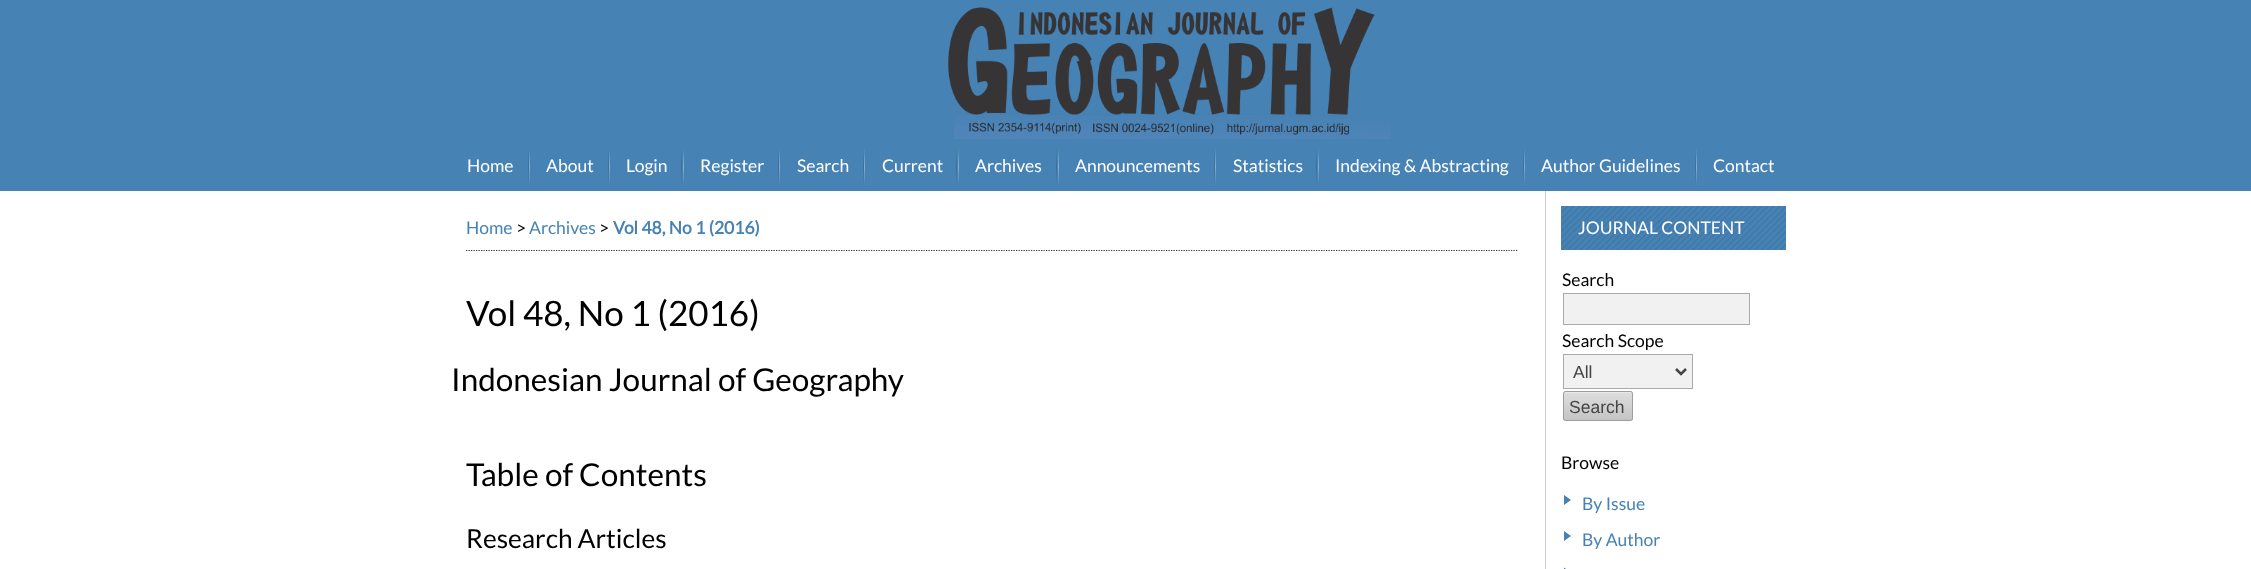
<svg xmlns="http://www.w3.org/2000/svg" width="2251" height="569">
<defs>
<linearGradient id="g1" gradientUnits="userSpaceOnUse" x1="528" y1="148" x2="528" y2="185"><stop offset="0" stop-color="#4682b4"/><stop offset="0.5" stop-color="#3c6f99"/><stop offset="1" stop-color="#4682b4"/></linearGradient>
<linearGradient id="g2" gradientUnits="userSpaceOnUse" x1="529" y1="148" x2="529" y2="185"><stop offset="0" stop-color="#4682b4"/><stop offset="0.5" stop-color="#87aece"/><stop offset="1" stop-color="#4682b4"/></linearGradient>
<linearGradient id="g3" gradientUnits="userSpaceOnUse" x1="608" y1="148" x2="608" y2="185"><stop offset="0" stop-color="#4682b4"/><stop offset="0.5" stop-color="#3c6f99"/><stop offset="1" stop-color="#4682b4"/></linearGradient>
<linearGradient id="g4" gradientUnits="userSpaceOnUse" x1="609" y1="148" x2="609" y2="185"><stop offset="0" stop-color="#4682b4"/><stop offset="0.5" stop-color="#87aece"/><stop offset="1" stop-color="#4682b4"/></linearGradient>
<linearGradient id="g5" gradientUnits="userSpaceOnUse" x1="682" y1="148" x2="682" y2="185"><stop offset="0" stop-color="#4682b4"/><stop offset="0.5" stop-color="#3c6f99"/><stop offset="1" stop-color="#4682b4"/></linearGradient>
<linearGradient id="g6" gradientUnits="userSpaceOnUse" x1="683" y1="148" x2="683" y2="185"><stop offset="0" stop-color="#4682b4"/><stop offset="0.5" stop-color="#87aece"/><stop offset="1" stop-color="#4682b4"/></linearGradient>
<linearGradient id="g7" gradientUnits="userSpaceOnUse" x1="778" y1="148" x2="778" y2="185"><stop offset="0" stop-color="#4682b4"/><stop offset="0.5" stop-color="#3c6f99"/><stop offset="1" stop-color="#4682b4"/></linearGradient>
<linearGradient id="g8" gradientUnits="userSpaceOnUse" x1="779" y1="148" x2="779" y2="185"><stop offset="0" stop-color="#4682b4"/><stop offset="0.5" stop-color="#87aece"/><stop offset="1" stop-color="#4682b4"/></linearGradient>
<linearGradient id="g9" gradientUnits="userSpaceOnUse" x1="863" y1="148" x2="863" y2="185"><stop offset="0" stop-color="#4682b4"/><stop offset="0.5" stop-color="#3c6f99"/><stop offset="1" stop-color="#4682b4"/></linearGradient>
<linearGradient id="g10" gradientUnits="userSpaceOnUse" x1="864" y1="148" x2="864" y2="185"><stop offset="0" stop-color="#4682b4"/><stop offset="0.5" stop-color="#87aece"/><stop offset="1" stop-color="#4682b4"/></linearGradient>
<linearGradient id="g11" gradientUnits="userSpaceOnUse" x1="957" y1="148" x2="957" y2="185"><stop offset="0" stop-color="#4682b4"/><stop offset="0.5" stop-color="#3c6f99"/><stop offset="1" stop-color="#4682b4"/></linearGradient>
<linearGradient id="g12" gradientUnits="userSpaceOnUse" x1="958" y1="148" x2="958" y2="185"><stop offset="0" stop-color="#4682b4"/><stop offset="0.5" stop-color="#87aece"/><stop offset="1" stop-color="#4682b4"/></linearGradient>
<linearGradient id="g13" gradientUnits="userSpaceOnUse" x1="1057" y1="148" x2="1057" y2="185"><stop offset="0" stop-color="#4682b4"/><stop offset="0.5" stop-color="#3c6f99"/><stop offset="1" stop-color="#4682b4"/></linearGradient>
<linearGradient id="g14" gradientUnits="userSpaceOnUse" x1="1058" y1="148" x2="1058" y2="185"><stop offset="0" stop-color="#4682b4"/><stop offset="0.5" stop-color="#87aece"/><stop offset="1" stop-color="#4682b4"/></linearGradient>
<linearGradient id="g15" gradientUnits="userSpaceOnUse" x1="1214" y1="148" x2="1214" y2="185"><stop offset="0" stop-color="#4682b4"/><stop offset="0.5" stop-color="#3c6f99"/><stop offset="1" stop-color="#4682b4"/></linearGradient>
<linearGradient id="g16" gradientUnits="userSpaceOnUse" x1="1216" y1="148" x2="1216" y2="185"><stop offset="0" stop-color="#4682b4"/><stop offset="0.5" stop-color="#87aece"/><stop offset="1" stop-color="#4682b4"/></linearGradient>
<linearGradient id="g17" gradientUnits="userSpaceOnUse" x1="1317" y1="148" x2="1317" y2="185"><stop offset="0" stop-color="#4682b4"/><stop offset="0.5" stop-color="#3c6f99"/><stop offset="1" stop-color="#4682b4"/></linearGradient>
<linearGradient id="g18" gradientUnits="userSpaceOnUse" x1="1318" y1="148" x2="1318" y2="185"><stop offset="0" stop-color="#4682b4"/><stop offset="0.5" stop-color="#87aece"/><stop offset="1" stop-color="#4682b4"/></linearGradient>
<linearGradient id="g19" gradientUnits="userSpaceOnUse" x1="1523" y1="148" x2="1523" y2="185"><stop offset="0" stop-color="#4682b4"/><stop offset="0.5" stop-color="#3c6f99"/><stop offset="1" stop-color="#4682b4"/></linearGradient>
<linearGradient id="g20" gradientUnits="userSpaceOnUse" x1="1524" y1="148" x2="1524" y2="185"><stop offset="0" stop-color="#4682b4"/><stop offset="0.5" stop-color="#87aece"/><stop offset="1" stop-color="#4682b4"/></linearGradient>
<linearGradient id="g21" gradientUnits="userSpaceOnUse" x1="1696" y1="148" x2="1696" y2="185"><stop offset="0" stop-color="#4682b4"/><stop offset="0.5" stop-color="#3c6f99"/><stop offset="1" stop-color="#4682b4"/></linearGradient>
<linearGradient id="g22" gradientUnits="userSpaceOnUse" x1="1697" y1="148" x2="1697" y2="185"><stop offset="0" stop-color="#4682b4"/><stop offset="0.5" stop-color="#87aece"/><stop offset="1" stop-color="#4682b4"/></linearGradient>
<linearGradient id="g23" gradientUnits="userSpaceOnUse" x1="1598" y1="393" x2="1598" y2="420"><stop offset="0" stop-color="#ddd"/><stop offset="1" stop-color="#c4c4c4"/></linearGradient>
</defs>
<rect width="100%" height="100%" fill="#fff"/>
<rect width="2251" height="191" fill="#4682b4"/>
<image x="948" y="7" width="443" height="132" href="media/1.png"/>
<text x="467" y="172" style="font-family:Lato;font-size:17.5px;fill:#fff">Home</text>
<rect x="528" y="148" width="1" height="37" fill="url(#g1)"/>
<rect x="529" y="148" width="1" height="37" fill="url(#g2)"/>
<text x="546" y="172" style="font-family:Lato;font-size:17.5px;fill:#fff">About</text>
<rect x="608" y="148" width="1" height="37" fill="url(#g3)"/>
<rect x="609" y="148" width="1" height="37" fill="url(#g4)"/>
<text x="626" y="172" style="font-family:Lato;font-size:17.5px;fill:#fff">Login</text>
<rect x="681" y="148" width="1" height="37" fill="url(#g5)"/>
<rect x="683" y="148" width="1" height="37" fill="url(#g6)"/>
<text x="700" y="172" style="font-family:Lato;font-size:17.5px;fill:#fff">Register</text>
<rect x="778" y="148" width="1" height="37" fill="url(#g7)"/>
<rect x="779" y="148" width="1" height="37" fill="url(#g8)"/>
<text x="797" y="172" style="font-family:Lato;font-size:17.5px;fill:#fff">Search</text>
<rect x="863" y="148" width="1" height="37" fill="url(#g9)"/>
<rect x="864" y="148" width="1" height="37" fill="url(#g10)"/>
<text x="882" y="172" style="font-family:Lato;font-size:17.5px;fill:#fff">Current</text>
<rect x="956" y="148" width="1" height="37" fill="url(#g11)"/>
<rect x="958" y="148" width="1" height="37" fill="url(#g12)"/>
<text x="975" y="172" style="font-family:Lato;font-size:17.5px;fill:#fff">Archives</text>
<rect x="1056" y="148" width="1" height="37" fill="url(#g13)"/>
<rect x="1058" y="148" width="1" height="37" fill="url(#g14)"/>
<text x="1075" y="172" style="font-family:Lato;font-size:17.5px;fill:#fff">Announcements</text>
<rect x="1214" y="148" width="1" height="37" fill="url(#g15)"/>
<rect x="1215" y="148" width="1" height="37" fill="url(#g16)"/>
<text x="1233" y="172" style="font-family:Lato;font-size:17.5px;fill:#fff">Statistics</text>
<rect x="1316" y="148" width="1" height="37" fill="url(#g17)"/>
<rect x="1318" y="148" width="1" height="37" fill="url(#g18)"/>
<text x="1335" y="172" style="font-family:Lato;font-size:17.5px;fill:#fff">Indexing &amp; Abstracting</text>
<rect x="1523" y="148" width="1" height="37" fill="url(#g19)"/>
<rect x="1524" y="148" width="1" height="37" fill="url(#g20)"/>
<text x="1541" y="172" style="font-family:Lato;font-size:17.5px;fill:#fff">Author Guidelines</text>
<rect x="1695" y="148" width="1" height="37" fill="url(#g21)"/>
<rect x="1696" y="148" width="1" height="37" fill="url(#g22)"/>
<text x="1713" y="172" style="font-family:Lato;font-size:17.5px;fill:#fff">Contact</text>
<path d="M466 250.5h1051.5" fill="none" stroke="#333" stroke-width="1.2" stroke-dasharray="1.25 1.25"/>
<text x="466" y="234" style="font-family:Lato;font-size:17.5px;fill:#4682b4">Home</text>
<text x="516" y="234" style="font-family:Lato;font-size:17.5px;fill:#000">&gt;</text>
<text x="529" y="234" style="font-family:Lato;font-size:17.5px;fill:#4682b4">Archives</text>
<text x="599" y="234" style="font-family:Lato;font-size:17.5px;fill:#000">&gt;</text>
<text x="613" y="234" style="font-family:Lato;font-size:17.5px;font-weight:bold;fill:#4682b4">Vol 48, No 1 (2016)</text>
<text x="466" y="326" style="font-family:Lato;font-size:35px;fill:#000">Vol 48, No 1 (2016)</text>
<text x="451" y="391" style="font-family:Lato;font-size:31.5px;fill:#000">Indonesian Journal of Geography</text>
<text x="466" y="486" style="font-family:Lato;font-size:31.5px;fill:#000">Table of Contents</text>
<text x="466" y="548" style="font-family:Lato;font-size:26.25px;fill:#000">Research Articles</text>
<rect x="1545" y="191" width="1" height="378" fill="#ccc"/>
<rect x="1561" y="206" width="225" height="44" fill="#4682b4"/>
<image x="1561" y="206" width="225" height="44" href="media/2.png"/>
<text x="1578" y="234" style="font-family:Lato;font-size:17.5px;fill:#fff">JOURNAL CONTENT</text>
<text x="1562" y="286" style="font-family:Lato;font-size:17.5px;fill:#000">Search</text>
<rect x="1563.5" y="293.5" width="186" height="31" fill="#f1f1f1" stroke="#aaa"/>
<text x="1562" y="347" style="font-family:Lato;font-size:17.5px;fill:#000">Search Scope</text>
<rect x="1563.5" y="354.5" width="129" height="34" fill="#f1f1f1" stroke="#aaa"/>
<path d="M1676 369l5 5l5-5" fill="none" stroke="#444" stroke-width="2.5"/>
<text x="1573" y="378" style="font-family:Liberation Sans;font-size:17.5px;fill:#444">All</text>
<rect x="1563" y="391" width="70" height="30" rx="2.5" fill="#e8e8e1"/>
<rect x="1563" y="393" width="70" height="27" fill="url(#g23)"/>
<rect x="1563.5" y="391.5" width="69" height="29" rx="2" fill="none" stroke="#9d9d9d"/>
<text x="1569" y="413" style="font-family:Liberation Sans;font-size:17.5px;fill:#444">Search</text>
<text x="1561" y="469" style="font-family:Lato;font-size:17.5px;fill:#000">Browse</text>
<path d="M1564 505v-10l7 5zm0 36v-10l7 5z" fill="#4682b4"/>
<text x="1582" y="510" style="font-family:Lato;font-size:17.5px;fill:#4682b4">By Issue</text>
<text x="1582" y="546" style="font-family:Lato;font-size:17.5px;fill:#4682b4">By Author</text>
<path d="M1564 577.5v-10l7 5z" fill="#4682b4"/>
</svg>
